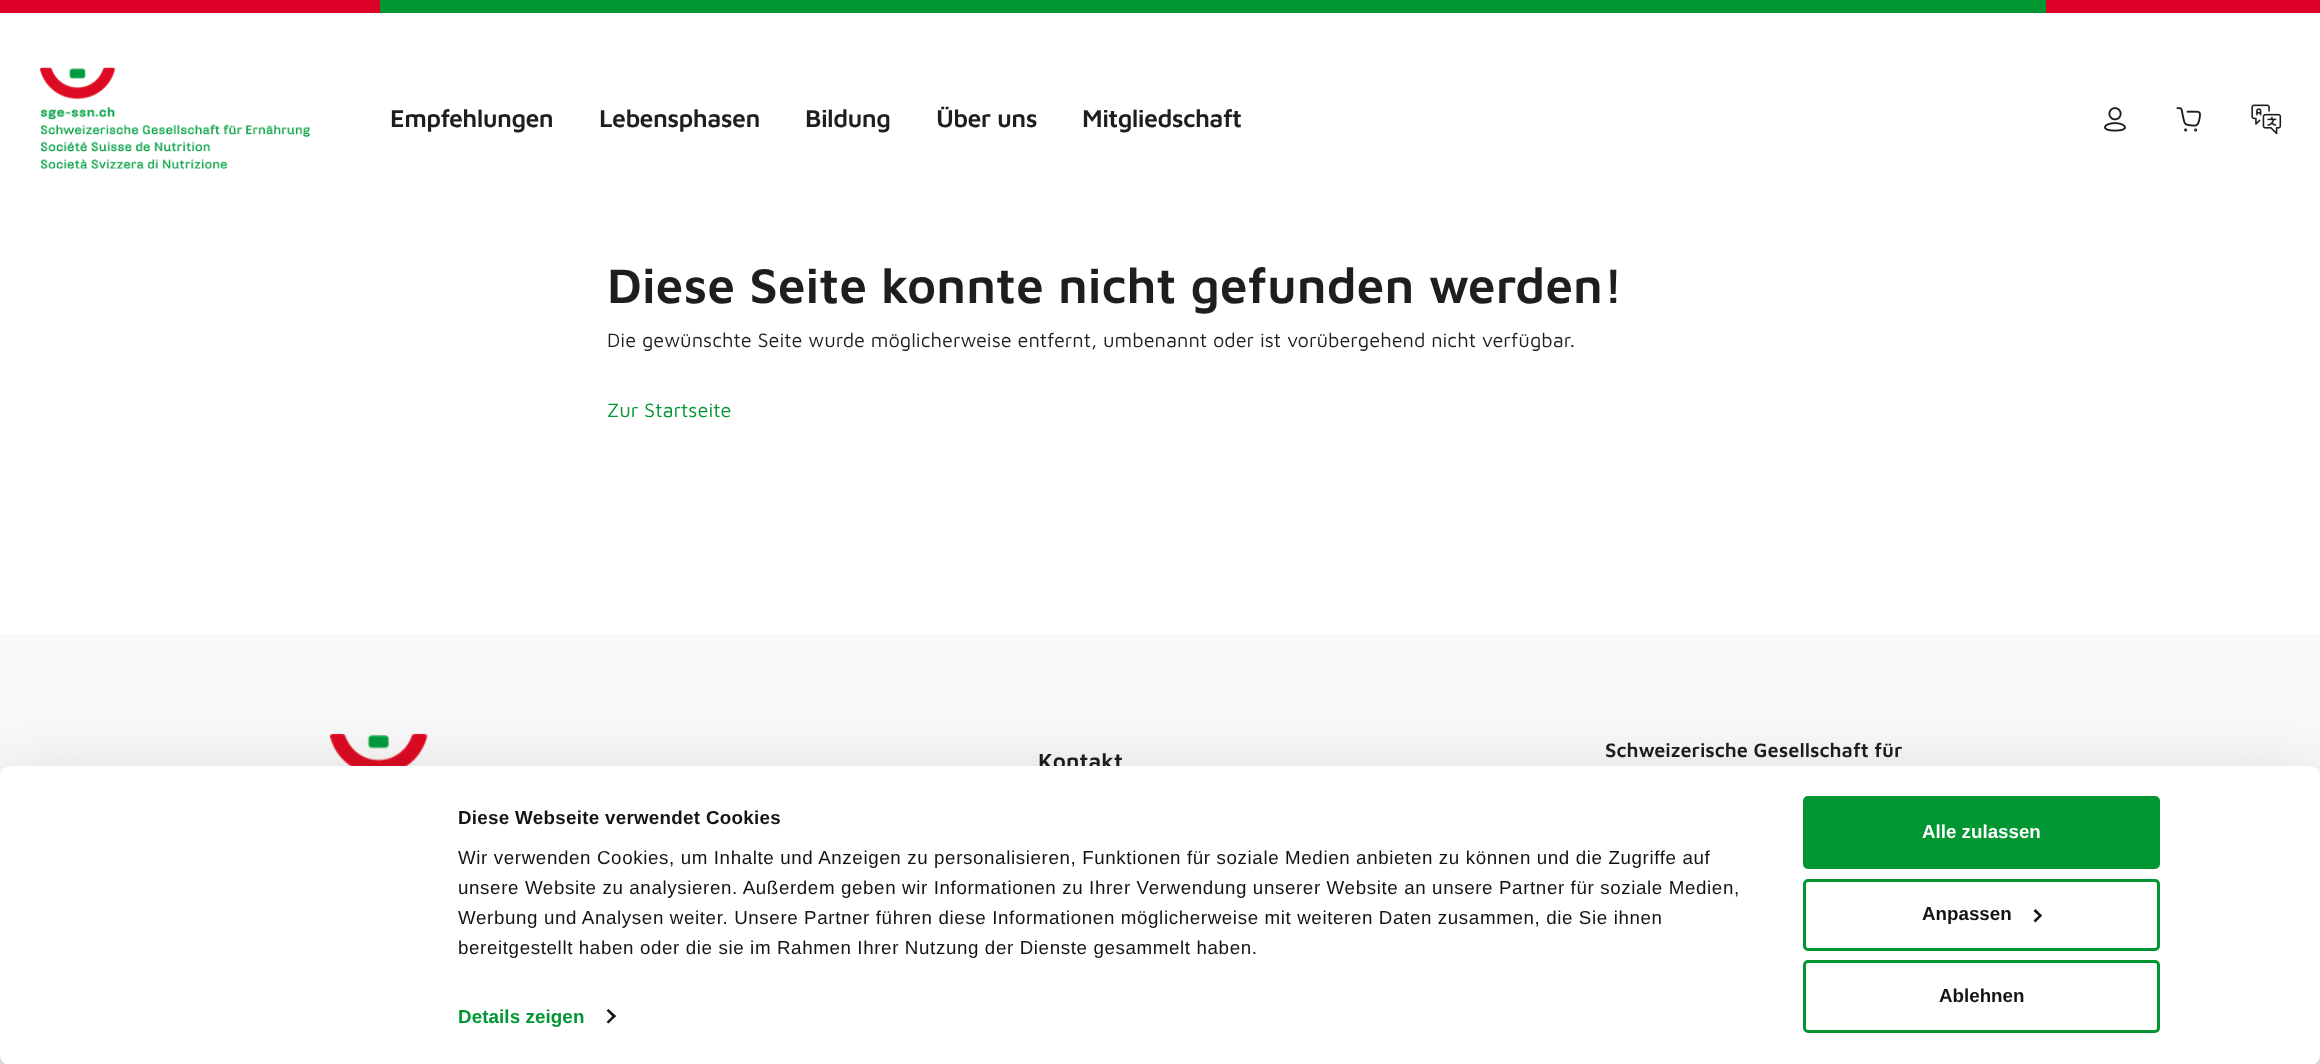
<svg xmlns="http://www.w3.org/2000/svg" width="2320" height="1064">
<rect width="100%" height="100%" fill="#fff"/>
<rect x="380" width="1666" height="13" fill="#009632"/>
<rect width="380" height="13" fill="#dc0028"/>
<rect x="2046" width="274" height="13" fill="#dc0028"/>
<image x="40" y="67" width="270" height="102" href="media/1.png"/>
<text x="390" y="127" style="font-family:Maven Pro;font-size:25px;font-weight:600;letter-spacing:-0.6px;fill:#1e1e1e">Empfehlungen</text>
<text x="599" y="127" style="font-family:Maven Pro;font-size:25px;font-weight:600;letter-spacing:-0.6px;fill:#1e1e1e">Lebensphasen</text>
<text x="805" y="127" style="font-family:Maven Pro;font-size:25px;font-weight:600;letter-spacing:-0.6px;fill:#1e1e1e">Bildung</text>
<text x="936" y="127" style="font-family:Maven Pro;font-size:25px;font-weight:600;letter-spacing:-0.6px;fill:#1e1e1e">Über uns</text>
<text x="1082" y="127" style="font-family:Maven Pro;font-size:25px;font-weight:600;letter-spacing:-0.6px;fill:#1e1e1e">Mitgliedschaft</text>
<image x="2104" y="107" width="22" height="25" href="media/2.png"/>
<image x="2176" y="107" width="25" height="25" href="media/3.png"/>
<image x="2251" y="104" width="31" height="31" href="media/4.png"/>
<text x="607" y="303" style="font-family:Maven Pro;font-size:50px;font-weight:600;fill:#1e1e1e">Diese Seite konnte nicht gefunden werden!</text>
<text x="607" y="347" style="font-family:Maven Pro;font-size:20px;fill:#1e1e1e">Die gewünschte Seite wurde möglicherweise entfernt, umbenannt oder ist vorübergehend nicht verfügbar.</text>
<text x="607" y="417" style="font-family:Maven Pro;font-size:20px;fill:#009632">Zur Startseite</text>
<rect y="634" width="2320" height="430" fill="#f9f9f9"/>
<image x="330" y="733" width="98" height="33" href="media/5.png"/>
<text x="1605" y="757" style="font-family:Maven Pro;font-size:20px;font-weight:600;fill:#1e1e1e">Schweizerische Gesellschaft für</text>
<text x="1038" y="769" style="font-family:Maven Pro;font-size:22.5px;font-weight:600;fill:#1e1e1e">Kontakt</text>
<rect y="804" width="2320" height="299" rx="10" fill="#0000004d" filter="blur(44px)"/>
<rect y="766" width="2320" height="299" rx="10" fill="#fff"/>
<text x="458" y="824" style="font-family:Liberation Sans;font-size:18.75px;font-weight:bold;letter-spacing:0.3px;fill:#141414">Diese Webseite verwendet Cookies</text>
<text x="458" y="864" style="font-family:Liberation Sans;font-size:18.75px;letter-spacing:0.62px;fill:#141414">Wir verwenden Cookies, um Inhalte und Anzeigen zu personalisieren, Funktionen für soziale Medien anbieten zu können und die Zugriffe auf</text>
<text x="458" y="894" style="font-family:Liberation Sans;font-size:18.75px;letter-spacing:0.62px;fill:#141414">unsere Website zu analysieren. Außerdem geben wir Informationen zu Ihrer Verwendung unserer Website an unsere Partner für soziale Medien,</text>
<text x="458" y="924" style="font-family:Liberation Sans;font-size:18.75px;letter-spacing:0.62px;fill:#141414">Werbung und Analysen weiter. Unsere Partner führen diese Informationen möglicherweise mit weiteren Daten zusammen, die Sie ihnen</text>
<text x="458" y="954" style="font-family:Liberation Sans;font-size:18.75px;letter-spacing:0.62px;fill:#141414">bereitgestellt haben oder die sie im Rahmen Ihrer Nutzung der Dienste gesammelt haben.</text>
<text x="458" y="1023" style="font-family:Liberation Sans;font-size:18.75px;font-weight:bold;letter-spacing:0.1px;fill:#009632">Details zeigen</text>
<path d="M608.5 1009l7.5 7l-2 2l-7.5-7.5z" fill="#141414"/>
<path d="M614 1014.5l2 1.5l-7.5 7.5l-2-1.5z" fill="#141414"/>
<rect x="1804.5" y="797.5" width="354" height="70" rx="3.5" fill="#009632" stroke="#009632" stroke-width="3"/>
<text x="1922" y="838" style="font-family:Liberation Sans;font-size:18.75px;font-weight:bold;fill:#fff">Alle zulassen</text>
<rect x="1804.5" y="880.5" width="354" height="69" rx="3.5" fill="none" stroke="#009632" stroke-width="3"/>
<text x="1922" y="920" style="font-family:Liberation Sans;font-size:18.75px;font-weight:bold;fill:#141414">Anpassen</text>
<path d="M2035.5 909l6.5 6.5l-1.5 2l-7-6.5z" fill="#141414"/>
<path d="M2040.5 914l1.5 1.5l-6.5 7l-2-2z" fill="#141414"/>
<rect x="1804.5" y="961.5" width="354" height="70" rx="3.5" fill="none" stroke="#009632" stroke-width="3"/>
<text x="1939" y="1002" style="font-family:Liberation Sans;font-size:18.75px;font-weight:bold;fill:#141414">Ablehnen</text>
</svg>
